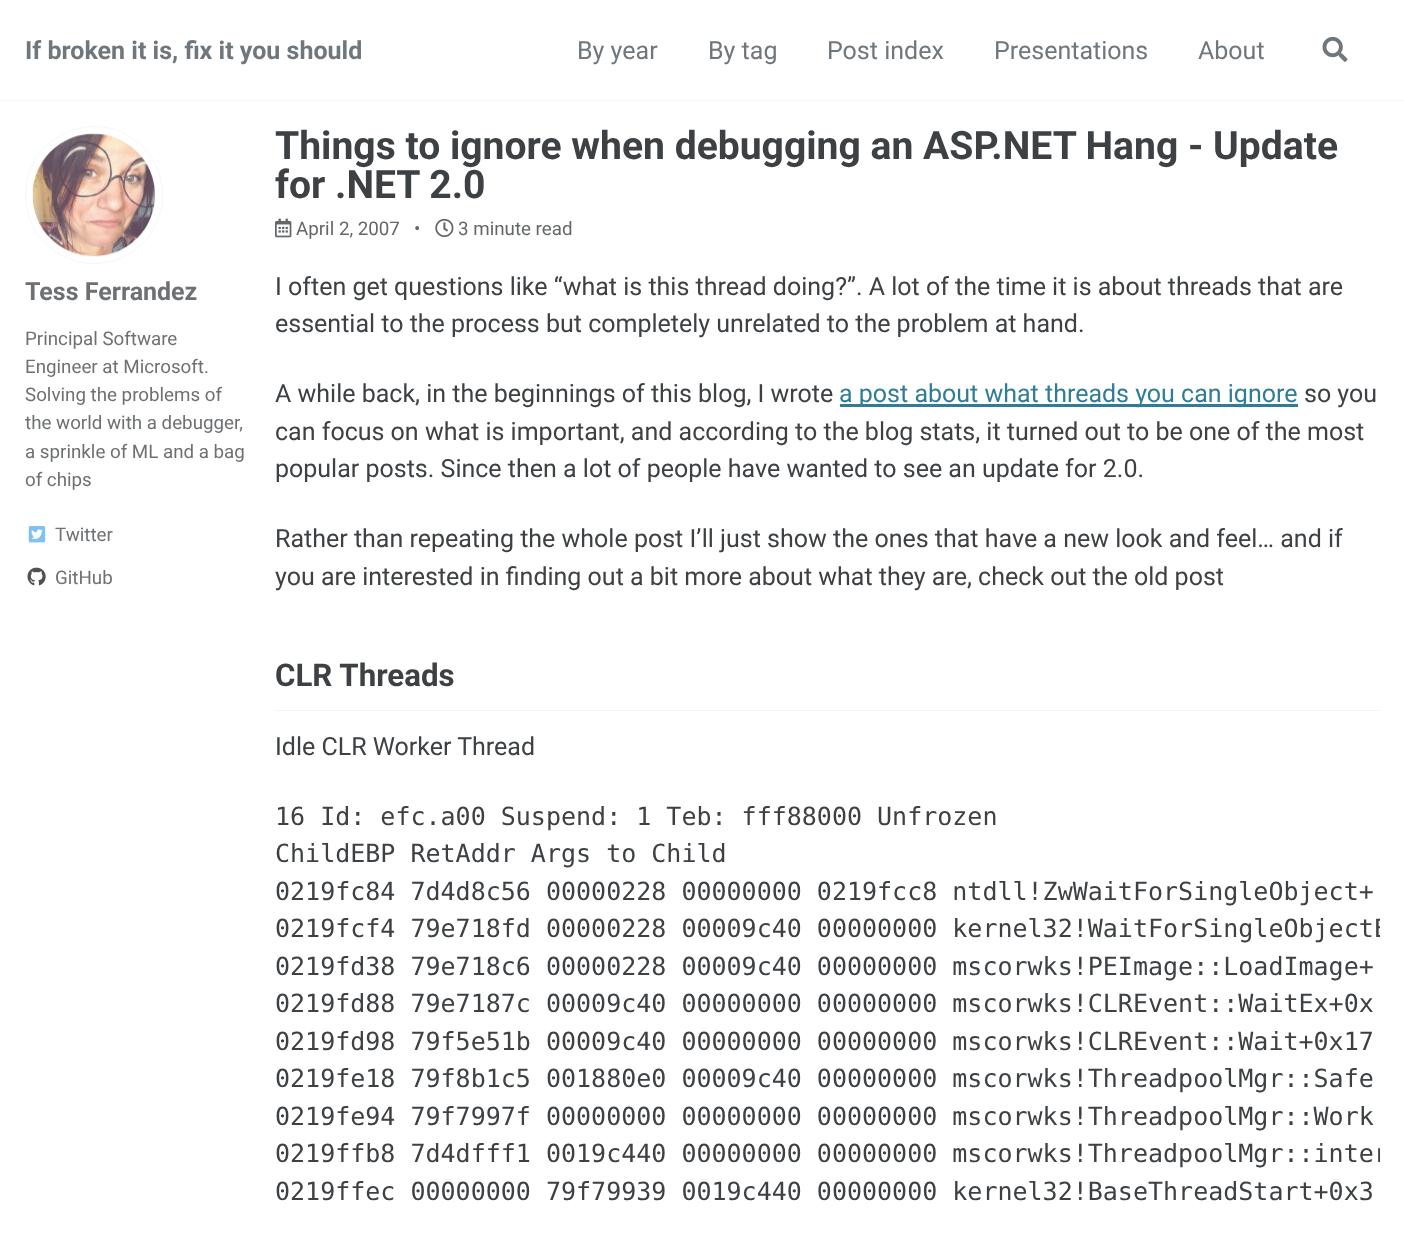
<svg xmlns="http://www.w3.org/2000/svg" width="1404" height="1256">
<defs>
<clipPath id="clip1"><rect x="275" y="798" width="1105" height="412"/></clipPath>
</defs>
<rect width="100%" height="100%" fill="#fff"/>
<rect y="100" width="1404" height="1" fill="#f2f3f3"/>
<text x="25" y="59" style="font-family:Roboto;font-size:25px;font-weight:bold;fill:#6f777d">If broken it is, fix it you should</text>
<text x="577" y="59" style="font-family:Roboto;font-size:25px;fill:#6f777d">By year</text>
<text x="708" y="59" style="font-family:Roboto;font-size:25px;fill:#6f777d">By tag</text>
<text x="827" y="59" style="font-family:Roboto;font-size:25px;fill:#6f777d">Post index</text>
<text x="994" y="59" style="font-family:Roboto;font-size:25px;fill:#6f777d">Presentations</text>
<text x="1198" y="59" style="font-family:Roboto;font-size:25px;fill:#6f777d">About</text>
<image x="1322" y="36" width="26" height="26" href="media/1.png"/>
<circle cx="94" cy="195" r="68.5" fill="none" stroke="#f5f6f6"/>
<image x="32" y="133" width="123" height="124" href="media/2.png"/>
<text x="25" y="300" style="font-family:Roboto;font-size:25px;font-weight:bold;fill:#6e7173">Tess Ferrandez</text>
<text x="25" y="345" style="font-family:Roboto;font-size:18.75px;fill:#6e7173">Principal Software</text>
<text x="25" y="373" style="font-family:Roboto;font-size:18.75px;fill:#6e7173">Engineer at Microsoft.</text>
<text x="25" y="401" style="font-family:Roboto;font-size:18.75px;fill:#6e7173">Solving the problems of</text>
<text x="25" y="429" style="font-family:Roboto;font-size:18.75px;fill:#6e7173">the world with a debugger,</text>
<text x="25" y="458" style="font-family:Roboto;font-size:18.75px;fill:#6e7173">a sprinkle of ML and a bag</text>
<text x="25" y="486" style="font-family:Roboto;font-size:18.75px;fill:#6e7173">of chips</text>
<image x="28" y="526" width="18" height="17" href="media/3.png"/>
<text x="55" y="541" style="font-family:Roboto;font-size:18.75px;fill:#6e7173">Twitter</text>
<image x="27" y="567" width="19" height="19" href="media/4.png"/>
<text x="55" y="584" style="font-family:Roboto;font-size:18.75px;fill:#6e7173">GitHub</text>
<text x="275" y="159" style="font-family:Roboto;font-size:39.1px;font-weight:bold;fill:#3d4144">Things to ignore when debugging an ASP.NET Hang - Update</text>
<text x="275" y="198" style="font-family:Roboto;font-size:39.1px;font-weight:bold;fill:#3d4144">for .NET 2.0</text>
<image x="275" y="218" width="17" height="20" href="media/5.png"/>
<text x="296" y="235" style="font-family:Roboto;font-size:18.75px;fill:#646769">April 2, 2007</text>
<text x="414" y="235" style="font-family:Roboto;font-size:18.75px;fill:#646769">•</text>
<image x="435" y="218" width="19" height="19" href="media/6.png"/>
<text x="458" y="235" style="font-family:Roboto;font-size:18.75px;fill:#646769">3 minute read</text>
<text x="275" y="295" style="font-family:Roboto;font-size:25px;fill:#3d4144">I often get questions like “what is this thread doing?”. A lot of the time it is about threads that are</text>
<text x="275" y="332" style="font-family:Roboto;font-size:25px;fill:#3d4144">essential to the process but completely unrelated to the problem at hand.</text>
<text x="275" y="402" style="font-family:Roboto;font-size:25px;fill:#3d4144">A while back, in the beginnings of this blog, I wrote</text>
<rect x="840" y="404" width="458" height="3" fill="#2f7d95"/>
<text x="839" y="402" style="font-family:Roboto;font-size:25px;fill:#2f7d95">a post about what threads you can ignore</text>
<text x="1304" y="402" style="font-family:Roboto;font-size:25px;fill:#3d4144">so you</text>
<text x="275" y="440" style="font-family:Roboto;font-size:25px;fill:#3d4144">can focus on what is important, and according to the blog stats, it turned out to be one of the most</text>
<text x="275" y="477" style="font-family:Roboto;font-size:25px;fill:#3d4144">popular posts. Since then a lot of people have wanted to see an update for 2.0.</text>
<text x="275" y="547" style="font-family:Roboto;font-size:25px;fill:#3d4144">Rather than repeating the whole post I’ll just show the ones that have a new look and feel… and if</text>
<text x="275" y="585" style="font-family:Roboto;font-size:25px;fill:#3d4144">you are interested in finding out a bit more about what they are, check out the old post</text>
<rect x="275" y="710" width="1105" height="1" fill="#f2f3f3"/>
<text x="275" y="686" style="font-family:Roboto;font-size:31.25px;font-weight:bold;fill:#3d4144">CLR Threads</text>
<text x="275" y="755" style="font-family:Roboto;font-size:25px;fill:#3d4144">Idle CLR Worker Thread</text>
<text x="275" y="825" style="font-family:DejaVu Sans Mono;font-size:25px;fill:#3d4144">16 Id: efc.a00 Suspend: 1 Teb: fff88000 Unfrozen</text>
<text x="275" y="862" style="font-family:DejaVu Sans Mono;font-size:25px;fill:#3d4144">ChildEBP RetAddr Args to Child</text>
<text x="275" y="900" style="font-family:DejaVu Sans Mono;font-size:25px;fill:#3d4144">0219fc84 7d4d8c56 00000228 00000000 0219fcc8 ntdll!ZwWaitForSingleObject+</text>
<g clip-path="url(#clip1)">
<text x="275" y="937" style="font-family:DejaVu Sans Mono;font-size:25px;fill:#3d4144">0219fcf4 79e718fd 00000228 00009c40 00000000 kernel32!WaitForSingleObjectE</text>
</g>
<text x="275" y="975" style="font-family:DejaVu Sans Mono;font-size:25px;fill:#3d4144">0219fd38 79e718c6 00000228 00009c40 00000000 mscorwks!PEImage::LoadImage+</text>
<text x="275" y="1012" style="font-family:DejaVu Sans Mono;font-size:25px;fill:#3d4144">0219fd88 79e7187c 00009c40 00000000 00000000 mscorwks!CLREvent::WaitEx+0x</text>
<text x="275" y="1050" style="font-family:DejaVu Sans Mono;font-size:25px;fill:#3d4144">0219fd98 79f5e51b 00009c40 00000000 00000000 mscorwks!CLREvent::Wait+0x17</text>
<text x="275" y="1087" style="font-family:DejaVu Sans Mono;font-size:25px;fill:#3d4144">0219fe18 79f8b1c5 001880e0 00009c40 00000000 mscorwks!ThreadpoolMgr::Safe</text>
<text x="275" y="1125" style="font-family:DejaVu Sans Mono;font-size:25px;fill:#3d4144">0219fe94 79f7997f 00000000 00000000 00000000 mscorwks!ThreadpoolMgr::Work</text>
<g clip-path="url(#clip1)">
<text x="275" y="1162" style="font-family:DejaVu Sans Mono;font-size:25px;fill:#3d4144">0219ffb8 7d4dfff1 0019c440 00000000 00000000 mscorwks!ThreadpoolMgr::inter</text>
</g>
<text x="275" y="1200" style="font-family:DejaVu Sans Mono;font-size:25px;fill:#3d4144">0219ffec 00000000 79f79939 0019c440 00000000 kernel32!BaseThreadStart+0x3</text>
</svg>
